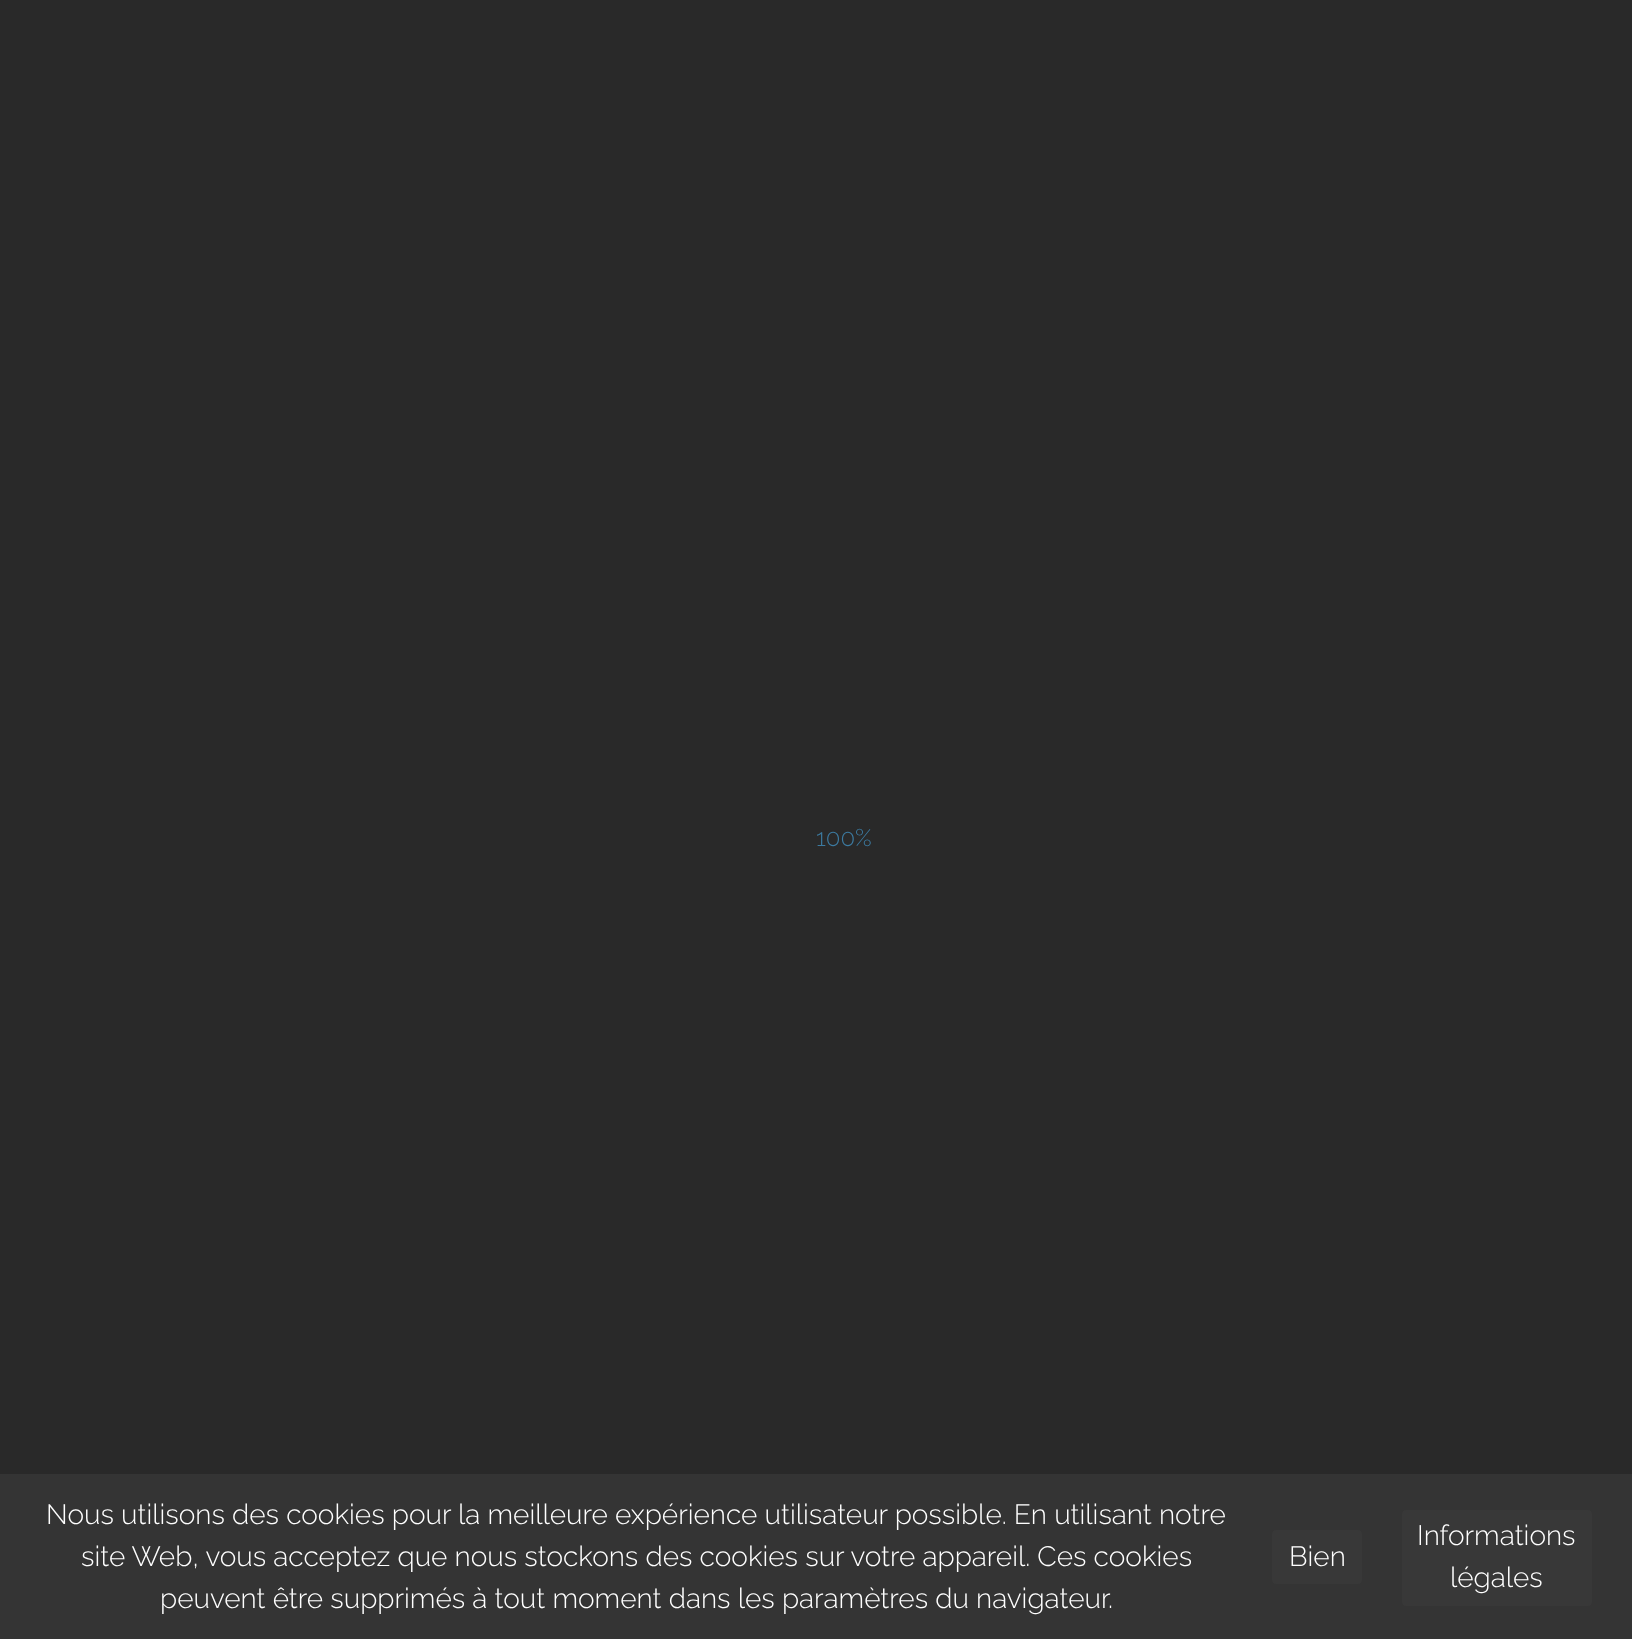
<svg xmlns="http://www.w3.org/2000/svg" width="1632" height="1639">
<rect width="100%" height="100%" fill="#292929"/>
<text x="816" y="846" style="font-family:Raleway;font-size:24px;font-weight:300;fill:#3c7aa0">100%</text>
<rect y="1474" width="1632" height="165" fill="#343434"/>
<text x="46" y="1524" style="font-family:Raleway;font-size:28px;font-weight:300;fill:#fff">Nous utilisons des cookies pour la meilleure expérience utilisateur possible. En utilisant notre</text>
<text x="81" y="1566" style="font-family:Raleway;font-size:28px;font-weight:300;fill:#fff">site Web, vous acceptez que nous stockons des cookies sur votre appareil. Ces cookies</text>
<text x="160" y="1608" style="font-family:Raleway;font-size:28px;font-weight:300;fill:#fff">peuvent être supprimés à tout moment dans les paramètres du navigateur.</text>
<rect x="1272" y="1530" width="90" height="54" rx="4" fill="#383838"/>
<text x="1289" y="1566" style="font-family:Raleway;font-size:28px;font-weight:300;fill:#fff">Bien</text>
<rect x="1402" y="1510" width="190" height="96" rx="4" fill="#383838"/>
<text x="1417" y="1545" style="font-family:Raleway;font-size:28px;font-weight:300;fill:#fff">Informations</text>
<text x="1450" y="1587" style="font-family:Raleway;font-size:28px;font-weight:300;fill:#fff">légales</text>
</svg>
